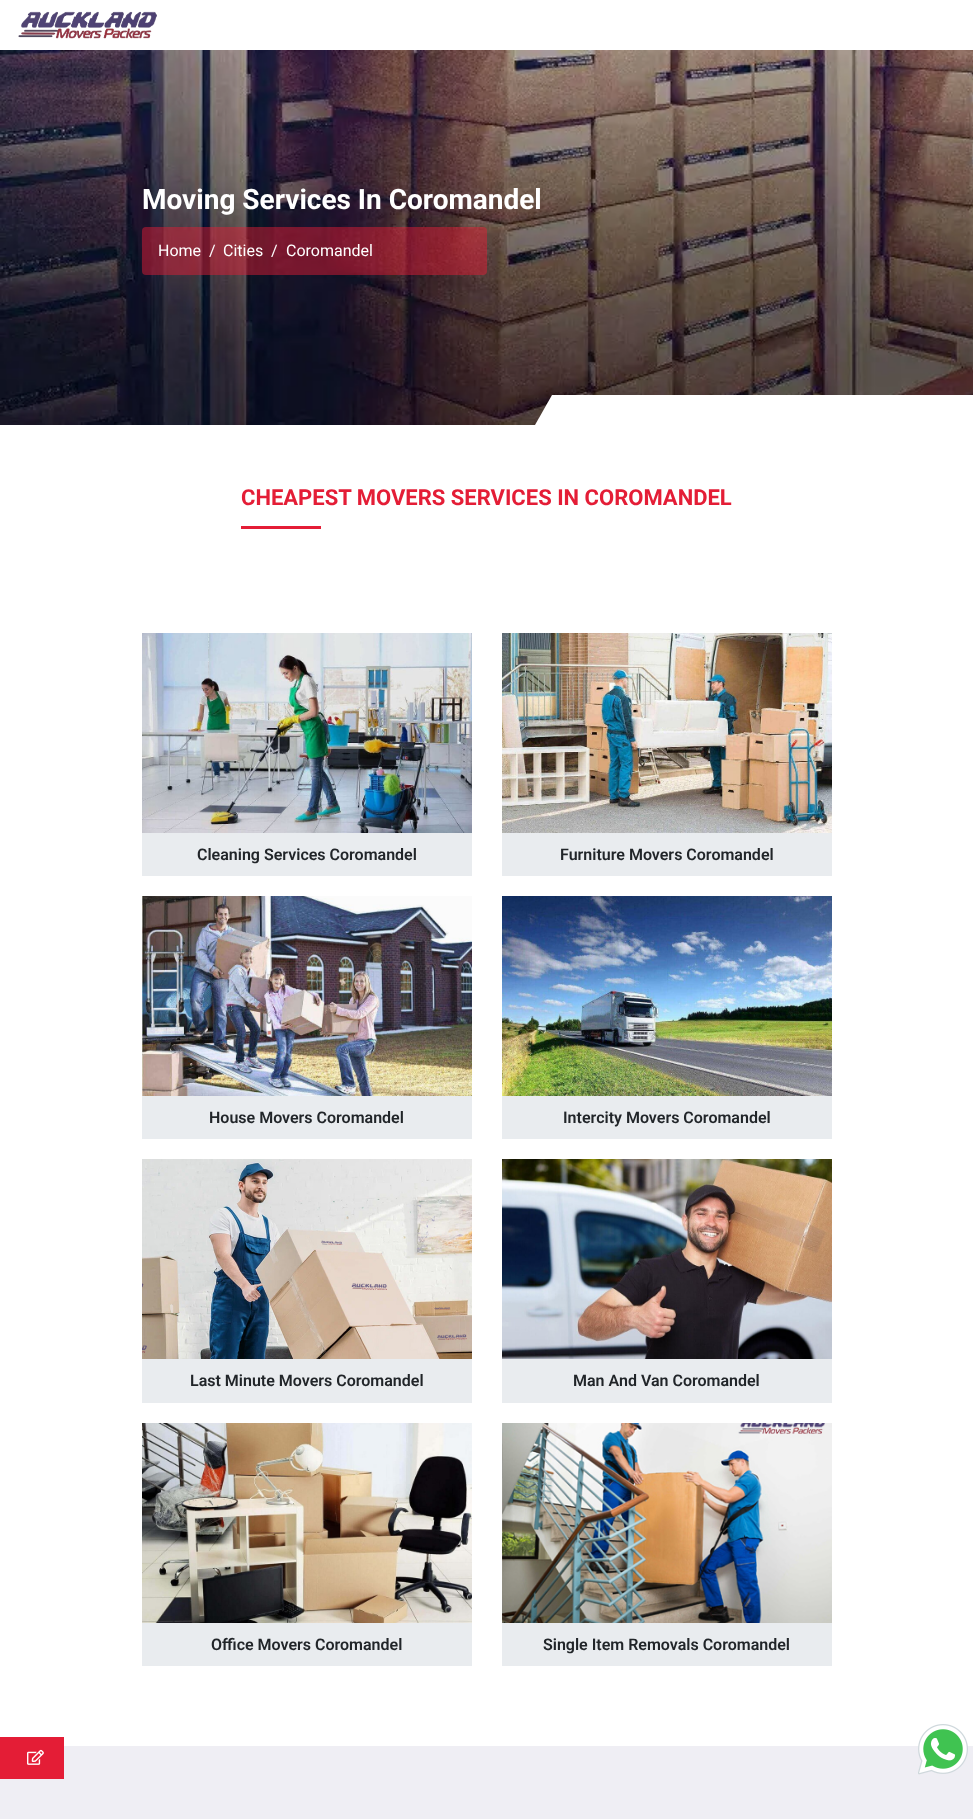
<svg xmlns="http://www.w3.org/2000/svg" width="973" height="1819">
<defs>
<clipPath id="clip1"><rect y="50" width="973" height="375"/></clipPath>
</defs>
<rect width="100%" height="100%" fill="#fff"/>
<image x="18" y="11" width="139" height="28" href="media/1.png"/>
<image x="0" y="50" width="973" height="375" href="media/2.png"/>
<text x="142" y="209" style="font-family:Roboto;font-size:28px;font-weight:bold;fill:#fff">Moving Services In Coromandel</text>
<rect x="142" y="227" width="345" height="48" rx="4" fill="#e41d367a"/>
<text x="158" y="256" style="font-family:Roboto;font-size:16px;fill:#fff">Home</text>
<text x="209" y="256" style="font-family:Roboto;font-size:16px;fill:#fff">/</text>
<text x="223" y="256" style="font-family:Roboto;font-size:16px;fill:#fff">Cities</text>
<text x="271" y="256" style="font-family:Roboto;font-size:16px;fill:#fff">/</text>
<text x="286" y="256" style="font-family:Roboto;font-size:16px;fill:#fff">Coromandel</text>
<g clip-path="url(#clip1)">
<path d="M552 395h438l-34 60h-438z" fill="#fff"/>
</g>
<text x="241" y="505" style="font-family:Roboto;font-size:22px;font-weight:bold;fill:#e41d36">CHEAPEST MOVERS SERVICES IN COROMANDEL</text>
<rect x="241" y="526" width="80" height="3" fill="#e41d36"/>
<image x="142" y="633" width="330" height="200" href="media/3.png"/>
<rect x="142" y="833" width="330" height="43" fill="#e9ecef"/>
<text x="197" y="860" style="font-family:Roboto;font-size:16px;font-weight:600;fill:#212529">Cleaning Services Coromandel</text>
<image x="502" y="633" width="330" height="200" href="media/4.png"/>
<rect x="502" y="833" width="330" height="43" fill="#e9ecef"/>
<text x="560" y="860" style="font-family:Roboto;font-size:16px;font-weight:600;fill:#212529">Furniture Movers Coromandel</text>
<image x="142" y="896" width="330" height="200" href="media/5.png"/>
<rect x="142" y="1096" width="330" height="43" fill="#e9ecef"/>
<text x="209" y="1123" style="font-family:Roboto;font-size:16px;font-weight:600;fill:#212529">House Movers Coromandel</text>
<image x="502" y="896" width="330" height="200" href="media/6.png"/>
<rect x="502" y="1096" width="330" height="43" fill="#e9ecef"/>
<text x="563" y="1123" style="font-family:Roboto;font-size:16px;font-weight:600;fill:#212529">Intercity Movers Coromandel</text>
<image x="142" y="1159" width="330" height="200" href="media/7.png"/>
<rect x="142" y="1359" width="330" height="44" fill="#e9ecef"/>
<text x="190" y="1386" style="font-family:Roboto;font-size:16px;font-weight:600;fill:#212529">Last Minute Movers Coromandel</text>
<image x="502" y="1159" width="330" height="200" href="media/8.png"/>
<rect x="502" y="1359" width="330" height="44" fill="#e9ecef"/>
<text x="573" y="1386" style="font-family:Roboto;font-size:16px;font-weight:600;fill:#212529">Man And Van Coromandel</text>
<image x="142" y="1423" width="330" height="200" href="media/9.png"/>
<rect x="142" y="1623" width="330" height="43" fill="#e9ecef"/>
<text x="211" y="1650" style="font-family:Roboto;font-size:16px;font-weight:600;fill:#212529">Office Movers Coromandel</text>
<image x="502" y="1423" width="330" height="200" href="media/10.png"/>
<rect x="502" y="1623" width="330" height="43" fill="#e9ecef"/>
<text x="543" y="1650" style="font-family:Roboto;font-size:16px;font-weight:600;fill:#212529">Single Item Removals Coromandel</text>
<rect y="1746" width="973" height="73" fill="#efeef4"/>
<rect y="1737" width="64" height="42" fill="#e41d36"/>
<image x="27" y="1749" width="17" height="16" href="media/11.png"/>
<image x="918" y="1724" width="50" height="51" href="media/12.png"/>
</svg>
